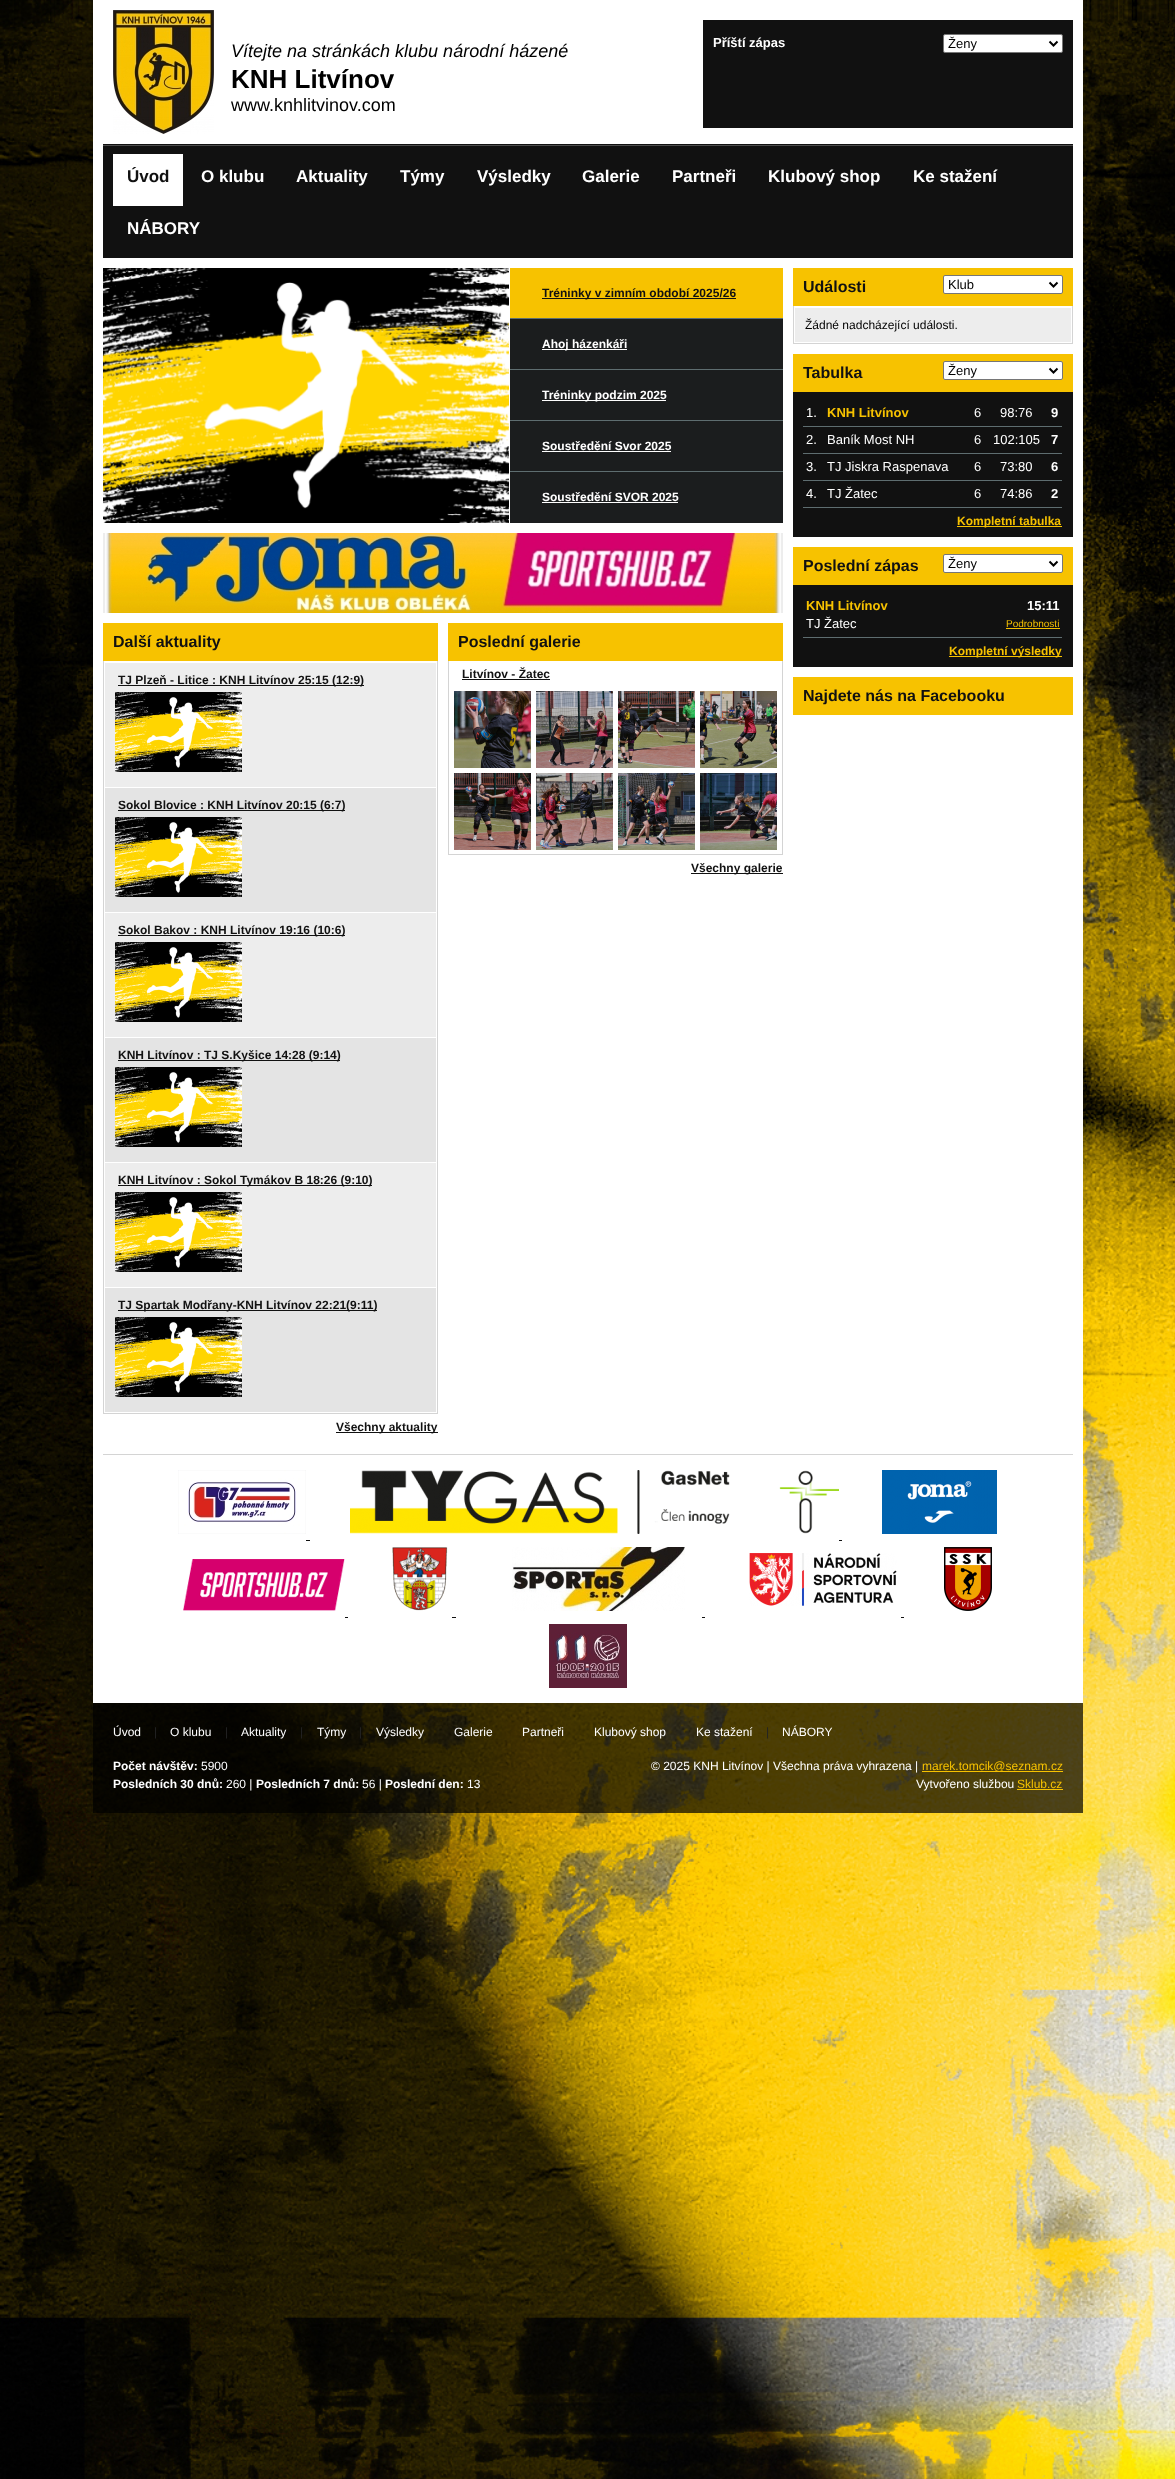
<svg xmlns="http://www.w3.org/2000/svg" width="1175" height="2479">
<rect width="100%" height="100%" fill="#fff"/>
<image x="0" y="0" width="1175" height="2479" href="media/1.png"/>
<rect x="93" width="990" height="1703" fill="#fff"/>
<image x="113" y="10" width="101" height="124" href="media/2.png"/>
<text x="231" y="57" style="font-family:Liberation Sans;font-size:18px;font-style:italic;fill:#000">Vítejte na stránkách klubu národní házené</text>
<text x="231" y="88" style="font-family:Liberation Sans;font-size:26px;font-weight:bold;fill:#000">KNH Litvínov</text>
<text x="231" y="111" style="font-family:Liberation Sans;font-size:18px;fill:#000">www.knhlitvinov.com</text>
<rect x="703" y="20" width="370" height="108" fill="#111"/>
<text x="713" y="47" style="font-family:Liberation Sans;font-size:13px;font-weight:bold;fill:#fff">Příští zápas</text>
<rect x="943.5" y="34.5" width="119" height="18" rx="1.5" fill="#fff" stroke="#767676"/>
<path d="M1049.5 41.5l4 4l4-4" fill="none" stroke="#000" stroke-width="2"/>
<text x="948" y="48" style="font-family:Liberation Sans;font-size:13px;fill:#000">Ženy</text>
<rect x="103" y="144" width="970" height="114" fill="#111"/>
<rect x="103" y="145" width="970" height="1" fill="#4d4d4d"/>
<rect x="113" y="154" width="70" height="52" fill="#fff"/>
<text x="127" y="182" style="font-family:Liberation Sans;font-size:17px;font-weight:bold;fill:#111">Úvod</text>
<text x="201" y="182" style="font-family:Liberation Sans;font-size:17px;font-weight:bold;fill:#fff">O klubu</text>
<text x="296" y="182" style="font-family:Liberation Sans;font-size:17px;font-weight:bold;fill:#fff">Aktuality</text>
<text x="400" y="182" style="font-family:Liberation Sans;font-size:17px;font-weight:bold;fill:#fff">Týmy</text>
<text x="477" y="182" style="font-family:Liberation Sans;font-size:17px;font-weight:bold;fill:#fff">Výsledky</text>
<text x="582" y="182" style="font-family:Liberation Sans;font-size:17px;font-weight:bold;fill:#fff">Galerie</text>
<text x="672" y="182" style="font-family:Liberation Sans;font-size:17px;font-weight:bold;fill:#fff">Partneři</text>
<text x="768" y="182" style="font-family:Liberation Sans;font-size:17px;font-weight:bold;fill:#fff">Klubový shop</text>
<text x="913" y="182" style="font-family:Liberation Sans;font-size:17px;font-weight:bold;fill:#fff">Ke stažení</text>
<text x="127" y="234" style="font-family:Liberation Sans;font-size:17px;font-weight:bold;fill:#fff">NÁBORY</text>
<image x="103" y="268" width="406" height="255" href="media/3.png"/>
<rect x="510" y="318" width="273" height="1" fill="#5e6d70"/>
<rect x="510" y="268" width="273" height="50" fill="#f7c200"/>
<rect x="542" y="298" width="194" height="1" fill="#111"/>
<text x="542" y="297" style="font-family:Liberation Sans;font-size:12px;font-weight:bold;fill:#111">Tréninky v zimním období 2025/26</text>
<rect x="510" y="319" width="273" height="50" fill="#1b1d1e"/>
<rect x="510" y="369" width="273" height="1" fill="#5e6d70"/>
<rect x="542" y="349" width="85" height="1" fill="#fff"/>
<text x="542" y="348" style="font-family:Liberation Sans;font-size:12px;font-weight:bold;fill:#fff">Ahoj házenkáři</text>
<rect x="510" y="370" width="273" height="50" fill="#1b1d1e"/>
<rect x="510" y="420" width="273" height="1" fill="#5e6d70"/>
<rect x="542" y="400" width="124" height="1" fill="#fff"/>
<text x="542" y="399" style="font-family:Liberation Sans;font-size:12px;font-weight:bold;fill:#fff">Tréninky podzim 2025</text>
<rect x="510" y="421" width="273" height="50" fill="#1b1d1e"/>
<rect x="510" y="471" width="273" height="1" fill="#5e6d70"/>
<text x="542" y="450" style="font-family:Liberation Sans;font-size:12px;font-weight:bold;fill:#fff">Soustředění Svor 2025</text>
<rect x="542" y="451" width="129" height="1" fill="#fff"/>
<rect x="510" y="472" width="273" height="51" fill="#1b1d1e"/>
<text x="542" y="501" style="font-family:Liberation Sans;font-size:12px;font-weight:bold;fill:#fff">Soustředění SVOR 2025</text>
<rect x="542" y="502" width="136" height="1" fill="#fff"/>
<rect x="103" y="533" width="680" height="80" fill="#ededed"/>
<image x="105" y="533" width="676" height="80" href="media/4.png"/>
<rect x="103" y="623" width="335" height="38" fill="#f7c200"/>
<text x="113" y="647" style="font-family:Liberation Sans;font-size:16px;font-weight:bold;fill:#111">Další aktuality</text>
<rect x="437" y="661" width="1" height="753" fill="#d4d4d4"/>
<rect x="103" y="1413" width="335" height="1" fill="#d4d4d4"/>
<rect x="103" y="661" width="1" height="753" fill="#d4d4d4"/>
<rect x="105" y="663" width="331" height="124" fill="#ededed"/>
<rect x="118" y="685" width="246" height="1" fill="#111"/>
<text x="118" y="684" style="font-family:Liberation Sans;font-size:12px;font-weight:bold;fill:#111">TJ Plzeň - Litice : KNH Litvínov 25:15 (12:9)</text>
<image x="115" y="692" width="127" height="80" href="media/5.png"/>
<rect x="105" y="788" width="331" height="124" fill="#e4e4e4"/>
<rect x="118" y="810" width="227" height="1" fill="#111"/>
<text x="118" y="809" style="font-family:Liberation Sans;font-size:12px;font-weight:bold;fill:#111">Sokol Blovice : KNH Litvínov 20:15 (6:7)</text>
<image x="115" y="817" width="127" height="80" href="media/5.png"/>
<rect x="105" y="913" width="331" height="124" fill="#ededed"/>
<rect x="118" y="935" width="227" height="1" fill="#111"/>
<text x="118" y="934" style="font-family:Liberation Sans;font-size:12px;font-weight:bold;fill:#111">Sokol Bakov : KNH Litvínov 19:16 (10:6)</text>
<image x="115" y="942" width="127" height="80" href="media/5.png"/>
<rect x="105" y="1038" width="331" height="124" fill="#e4e4e4"/>
<rect x="118" y="1060" width="222" height="1" fill="#111"/>
<text x="118" y="1059" style="font-family:Liberation Sans;font-size:12px;font-weight:bold;fill:#111">KNH Litvínov : TJ S.Kyšice 14:28 (9:14)</text>
<image x="115" y="1067" width="127" height="80" href="media/5.png"/>
<rect x="105" y="1163" width="331" height="124" fill="#ededed"/>
<rect x="118" y="1185" width="254" height="1" fill="#111"/>
<text x="118" y="1184" style="font-family:Liberation Sans;font-size:12px;font-weight:bold;fill:#111">KNH Litvínov : Sokol Tymákov B 18:26 (9:10)</text>
<image x="115" y="1192" width="127" height="80" href="media/5.png"/>
<rect x="105" y="1288" width="331" height="124" fill="#e4e4e4"/>
<rect x="118" y="1310" width="259" height="1" fill="#111"/>
<text x="118" y="1309" style="font-family:Liberation Sans;font-size:12px;font-weight:bold;fill:#111">TJ Spartak Modřany-KNH Litvínov 22:21(9:11)</text>
<image x="115" y="1317" width="127" height="80" href="media/5.png"/>
<rect x="336" y="1432" width="102" height="1" fill="#111"/>
<text x="336" y="1431" style="font-family:Liberation Sans;font-size:12px;font-weight:bold;fill:#111">Všechny aktuality</text>
<rect x="448" y="623" width="335" height="38" fill="#f7c200"/>
<text x="458" y="647" style="font-family:Liberation Sans;font-size:16px;font-weight:bold;fill:#111">Poslední galerie</text>
<rect x="782" y="661" width="1" height="194" fill="#d4d4d4"/>
<rect x="448" y="854" width="335" height="1" fill="#d4d4d4"/>
<rect x="448" y="661" width="1" height="194" fill="#d4d4d4"/>
<text x="462" y="678" style="font-family:Liberation Sans;font-size:12px;font-weight:bold;fill:#111">Litvínov - Žatec</text>
<rect x="462" y="679" width="88" height="1" fill="#111"/>
<image x="454" y="691" width="77" height="77" href="media/6.png"/>
<image x="536" y="691" width="77" height="77" href="media/7.png"/>
<image x="618" y="691" width="77" height="77" href="media/8.png"/>
<image x="700" y="691" width="77" height="77" href="media/9.png"/>
<image x="454" y="773" width="77" height="77" href="media/10.png"/>
<image x="536" y="773" width="77" height="77" href="media/11.png"/>
<image x="618" y="773" width="77" height="77" href="media/12.png"/>
<image x="700" y="773" width="77" height="77" href="media/13.png"/>
<rect x="691" y="873" width="92" height="1" fill="#111"/>
<text x="691" y="872" style="font-family:Liberation Sans;font-size:12px;font-weight:bold;fill:#111">Všechny galerie</text>
<rect x="793" y="268" width="280" height="38" fill="#f7c200"/>
<text x="803" y="292" style="font-family:Liberation Sans;font-size:16px;font-weight:bold;fill:#111">Události</text>
<rect x="943.5" y="275.5" width="119" height="18" rx="1.5" fill="#fff" stroke="#767676"/>
<path d="M1049.5 282.5l4 4l4-4" fill="none" stroke="#000" stroke-width="2"/>
<text x="948" y="289" style="font-family:Liberation Sans;font-size:13px;fill:#000">Klub</text>
<rect x="1072" y="306" width="1" height="38" fill="#d4d4d4"/>
<rect x="793" y="343" width="280" height="1" fill="#d4d4d4"/>
<rect x="793" y="306" width="1" height="38" fill="#d4d4d4"/>
<rect x="795" y="308" width="276" height="34" fill="#ededed"/>
<text x="805" y="329" style="font-family:Liberation Sans;font-size:12px;fill:#000">Žádné nadcházející události.</text>
<rect x="793" y="354" width="280" height="38" fill="#f7c200"/>
<text x="803" y="378" style="font-family:Liberation Sans;font-size:16px;font-weight:bold;fill:#111">Tabulka</text>
<rect x="943.5" y="361.5" width="119" height="18" rx="1.5" fill="#fff" stroke="#767676"/>
<path d="M1049.5 368.5l4 4l4-4" fill="none" stroke="#000" stroke-width="2"/>
<text x="948" y="375" style="font-family:Liberation Sans;font-size:13px;fill:#000">Ženy</text>
<rect x="793" y="392" width="280" height="145" fill="#111"/>
<text x="806" y="417" style="font-family:Liberation Sans;font-size:13px;fill:#fff">1.</text>
<text x="827" y="417" style="font-family:Liberation Sans;font-size:13px;font-weight:bold;fill:#f7c200">KNH Litvínov</text>
<text x="974" y="417" style="font-family:Liberation Sans;font-size:13px;fill:#fff">6</text>
<text x="1000" y="417" style="font-family:Liberation Sans;font-size:13px;fill:#fff">98:76</text>
<rect x="803" y="426" width="259" height="1" fill="#5e6d70"/>
<text x="1051" y="417" style="font-family:Liberation Sans;font-size:13px;font-weight:bold;fill:#fff">9</text>
<text x="806" y="444" style="font-family:Liberation Sans;font-size:13px;fill:#fff">2.</text>
<text x="827" y="444" style="font-family:Liberation Sans;font-size:13px;fill:#fff">Baník Most NH</text>
<text x="974" y="444" style="font-family:Liberation Sans;font-size:13px;fill:#fff">6</text>
<text x="993" y="444" style="font-family:Liberation Sans;font-size:13px;fill:#fff">102:105</text>
<rect x="803" y="453" width="259" height="1" fill="#5e6d70"/>
<text x="1051" y="444" style="font-family:Liberation Sans;font-size:13px;font-weight:bold;fill:#fff">7</text>
<text x="806" y="471" style="font-family:Liberation Sans;font-size:13px;fill:#fff">3.</text>
<text x="827" y="471" style="font-family:Liberation Sans;font-size:13px;fill:#fff">TJ Jiskra Raspenava</text>
<text x="974" y="471" style="font-family:Liberation Sans;font-size:13px;fill:#fff">6</text>
<text x="1000" y="471" style="font-family:Liberation Sans;font-size:13px;fill:#fff">73:80</text>
<rect x="803" y="480" width="259" height="1" fill="#5e6d70"/>
<text x="1051" y="471" style="font-family:Liberation Sans;font-size:13px;font-weight:bold;fill:#fff">6</text>
<text x="806" y="498" style="font-family:Liberation Sans;font-size:13px;fill:#fff">4.</text>
<text x="827" y="498" style="font-family:Liberation Sans;font-size:13px;fill:#fff">TJ Žatec</text>
<text x="974" y="498" style="font-family:Liberation Sans;font-size:13px;fill:#fff">6</text>
<text x="1000" y="498" style="font-family:Liberation Sans;font-size:13px;fill:#fff">74:86</text>
<rect x="803" y="507" width="259" height="1" fill="#5e6d70"/>
<text x="1051" y="498" style="font-family:Liberation Sans;font-size:13px;font-weight:bold;fill:#fff">2</text>
<rect x="957" y="526" width="105" height="1" fill="#f7c200"/>
<text x="957" y="525" style="font-family:Liberation Sans;font-size:12px;font-weight:bold;fill:#f7c200">Kompletní tabulka</text>
<rect x="793" y="547" width="280" height="38" fill="#f7c200"/>
<text x="803" y="571" style="font-family:Liberation Sans;font-size:16px;font-weight:bold;fill:#111">Poslední zápas</text>
<rect x="943.5" y="554.5" width="119" height="18" rx="1.5" fill="#fff" stroke="#767676"/>
<path d="M1049.5 561.5l4 4l4-4" fill="none" stroke="#000" stroke-width="2"/>
<text x="948" y="568" style="font-family:Liberation Sans;font-size:13px;fill:#000">Ženy</text>
<rect x="793" y="585" width="280" height="82" fill="#111"/>
<text x="806" y="610" style="font-family:Liberation Sans;font-size:13px;font-weight:bold;fill:#f7c200">KNH Litvínov</text>
<text x="806" y="628" style="font-family:Liberation Sans;font-size:13px;fill:#fff">TJ Žatec</text>
<rect x="803" y="637" width="259" height="1" fill="#5e6d70"/>
<text x="1027" y="610" style="font-family:Liberation Sans;font-size:13px;font-weight:bold;fill:#fff">15:11</text>
<text x="1006" y="627" style="font-family:Liberation Sans;font-size:10px;fill:#f7c200">Podrobnosti</text>
<rect x="1006" y="628" width="54" height="1" fill="#f7c200"/>
<rect x="949" y="656" width="113" height="1" fill="#f7c200"/>
<text x="949" y="655" style="font-family:Liberation Sans;font-size:12px;font-weight:bold;fill:#f7c200">Kompletní výsledky</text>
<rect x="793" y="677" width="280" height="38" fill="#f7c200"/>
<text x="803" y="701" style="font-family:Liberation Sans;font-size:16px;font-weight:bold;fill:#111">Najdete nás na Facebooku</text>
<rect x="103" y="1454" width="970" height="1" fill="#d4d4d4"/>
<image x="178" y="1470" width="128" height="64" href="media/14.png"/>
<image x="350" y="1470" width="489" height="64" href="media/15.png"/>
<image x="882" y="1470" width="115" height="64" href="media/16.png"/>
<rect x="306" y="1540" width="4" height="1" fill="#111"/>
<rect x="839" y="1540" width="3" height="1" fill="#111"/>
<image x="183" y="1559" width="162" height="52" href="media/17.png"/>
<image x="392" y="1547" width="56" height="64" href="media/18.png"/>
<image x="512" y="1547" width="173" height="64" href="media/19.png"/>
<image x="749" y="1553" width="148" height="53" href="media/20.png"/>
<image x="944" y="1547" width="48" height="64" href="media/21.png"/>
<rect x="345" y="1617" width="3" height="1" fill="#111"/>
<rect x="452" y="1617" width="4" height="1" fill="#111"/>
<rect x="702" y="1617" width="3" height="1" fill="#111"/>
<rect x="901" y="1617" width="3" height="1" fill="#111"/>
<image x="549" y="1624" width="78" height="64" href="media/22.png"/>
<rect x="93" y="1703" width="990" height="110" fill="#000000b3"/>
<text x="113" y="1736" style="font-family:Liberation Sans;font-size:12px;fill:#fff">Úvod</text>
<text x="154" y="1736" style="font-family:Liberation Sans;font-size:12px;fill:#232323">|</text>
<text x="170" y="1736" style="font-family:Liberation Sans;font-size:12px;fill:#fff">O klubu</text>
<text x="225" y="1736" style="font-family:Liberation Sans;font-size:12px;fill:#232323">|</text>
<text x="241" y="1736" style="font-family:Liberation Sans;font-size:12px;fill:#fff">Aktuality</text>
<text x="300" y="1736" style="font-family:Liberation Sans;font-size:12px;fill:#232323">|</text>
<text x="317" y="1736" style="font-family:Liberation Sans;font-size:12px;fill:#fff">Týmy</text>
<text x="359" y="1736" style="font-family:Liberation Sans;font-size:12px;fill:#232323">|</text>
<text x="376" y="1736" style="font-family:Liberation Sans;font-size:12px;fill:#fff">Výsledky</text>
<text x="454" y="1736" style="font-family:Liberation Sans;font-size:12px;fill:#fff">Galerie</text>
<text x="522" y="1736" style="font-family:Liberation Sans;font-size:12px;fill:#fff">Partneři</text>
<text x="594" y="1736" style="font-family:Liberation Sans;font-size:12px;fill:#fff">Klubový shop</text>
<text x="696" y="1736" style="font-family:Liberation Sans;font-size:12px;fill:#fff">Ke stažení</text>
<text x="766" y="1736" style="font-family:Liberation Sans;font-size:12px;fill:#232323">|</text>
<text x="782" y="1736" style="font-family:Liberation Sans;font-size:12px;fill:#fff">NÁBORY</text>
<text x="113" y="1770" style="font-family:Liberation Sans;font-size:12px;font-weight:bold;fill:#fff">Počet návštěv:</text>
<text x="201" y="1770" style="font-family:Liberation Sans;font-size:12px;fill:#fff">5900</text>
<text x="113" y="1788" style="font-family:Liberation Sans;font-size:12px;font-weight:bold;fill:#fff">Posledních 30 dnů:</text>
<text x="226" y="1788" style="font-family:Liberation Sans;font-size:12px;fill:#fff">260 |</text>
<text x="256" y="1788" style="font-family:Liberation Sans;font-size:12px;font-weight:bold;fill:#fff">Posledních 7 dnů:</text>
<text x="362" y="1788" style="font-family:Liberation Sans;font-size:12px;fill:#fff">56 |</text>
<text x="385" y="1788" style="font-family:Liberation Sans;font-size:12px;font-weight:bold;fill:#fff">Poslední den:</text>
<text x="467" y="1788" style="font-family:Liberation Sans;font-size:12px;fill:#fff">13</text>
<text x="651" y="1770" style="font-family:Liberation Sans;font-size:12px;fill:#fff">© 2025 KNH Litvínov | Všechna práva vyhrazena |</text>
<rect x="922" y="1771" width="141" height="1" fill="#f7c200"/>
<text x="922" y="1770" style="font-family:Liberation Sans;font-size:12px;fill:#f7c200">marek.tomcik@seznam.cz</text>
<text x="916" y="1788" style="font-family:Liberation Sans;font-size:12px;fill:#fff">Vytvořeno službou</text>
<text x="1017" y="1788" style="font-family:Liberation Sans;font-size:12px;fill:#f7c200">Sklub.cz</text>
<rect x="1017" y="1789" width="46" height="1" fill="#f7c200"/>
</svg>
